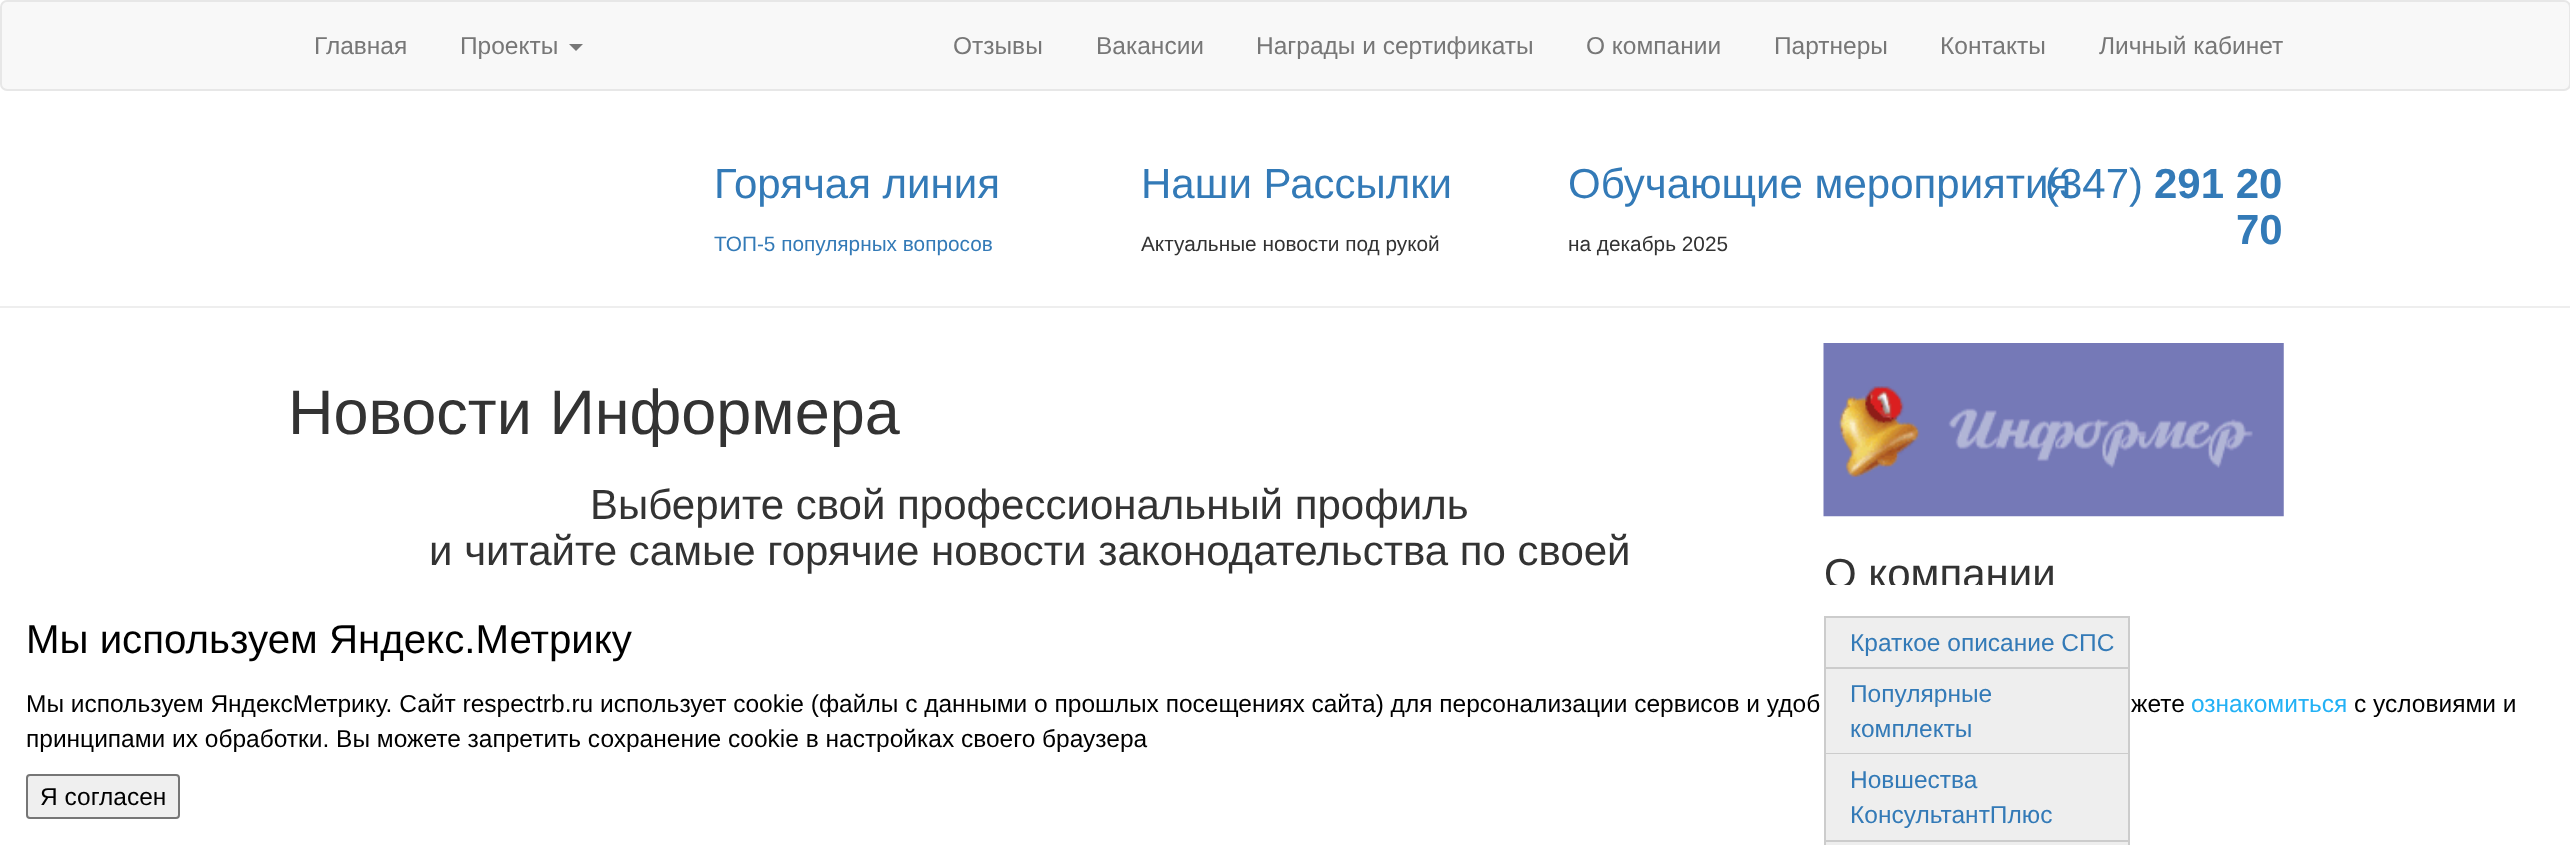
<svg xmlns="http://www.w3.org/2000/svg" width="2570" height="845">
<rect width="100%" height="100%" fill="#fff"/>
<rect x="1" y="1" width="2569" height="89" rx="6" fill="#f8f8f8" stroke="#e7e7e7" stroke-width="2"/>
<text x="314" y="54" style="font-family:Liberation Sans;font-size:24.5px;fill:#777">Главная</text>
<text x="460" y="54" style="font-family:Liberation Sans;font-size:24.5px;fill:#777">Проекты</text>
<path d="M569 44h14l-7 7z" fill="#777"/>
<text x="953" y="54" style="font-family:Liberation Sans;font-size:24.5px;fill:#777">Отзывы</text>
<text x="1096" y="54" style="font-family:Liberation Sans;font-size:24.5px;fill:#777">Вакансии</text>
<text x="1256" y="54" style="font-family:Liberation Sans;font-size:24.5px;fill:#777">Награды и сертификаты</text>
<text x="1586" y="54" style="font-family:Liberation Sans;font-size:24.5px;fill:#777">О компании</text>
<text x="1774" y="54" style="font-family:Liberation Sans;font-size:24.5px;fill:#777">Партнеры</text>
<text x="1940" y="54" style="font-family:Liberation Sans;font-size:24.5px;fill:#777">Контакты</text>
<text x="2099" y="54" style="font-family:Liberation Sans;font-size:24.5px;fill:#777">Личный кабинет</text>
<text x="714" y="198" style="font-family:Liberation Sans;font-size:42px;fill:#337ab7">Горячая линия</text>
<text x="714" y="251" style="font-family:Liberation Sans;font-size:20.8px;fill:#337ab7">ТОП-5 популярных вопросов</text>
<text x="1141" y="198" style="font-family:Liberation Sans;font-size:42px;fill:#337ab7">Наши Рассылки</text>
<text x="1141" y="251" style="font-family:Liberation Sans;font-size:20.8px;fill:#333">Актуальные новости под рукой</text>
<text x="1568" y="198" style="font-family:Liberation Sans;font-size:42px;fill:#337ab7">Обучающие мероприятия</text>
<text x="1568" y="251" style="font-family:Liberation Sans;font-size:20.8px;fill:#333">на декабрь 2025</text>
<text x="2045" y="198" style="font-family:Liberation Sans;font-size:42px;fill:#337ab7">(347)</text>
<text x="2154" y="198" style="font-family:Liberation Sans;font-size:42px;font-weight:bold;fill:#337ab7">291 20</text>
<text x="2236" y="244" style="font-family:Liberation Sans;font-size:42px;font-weight:bold;fill:#337ab7">70</text>
<rect y="306" width="2570" height="2" fill="#eee"/>
<text x="288" y="434" style="font-family:Liberation Sans;font-size:63px;fill:#333">Новости Информера</text>
<text x="590" y="519" style="font-family:Liberation Sans;font-size:42px;fill:#333">Выберите свой профессиональный профиль</text>
<text x="429" y="565" style="font-family:Liberation Sans;font-size:42px;fill:#333">и читайте самые горячие новости законодательства по своей</text>
<image x="1823" y="343" width="461" height="174" href="media/1.png"/>
<text x="1824" y="588" style="font-family:Liberation Sans;font-size:42px;fill:#333">О компании</text>
<rect x="1824" y="616" width="306" height="2" fill="#ccc"/>
<rect x="1826" y="618" width="302" height="49" fill="#eee"/>
<rect x="2128" y="618" width="2" height="224" fill="#ccc"/>
<rect x="1824" y="667" width="306" height="2" fill="#ccc"/>
<rect x="1824" y="618" width="2" height="51" fill="#ccc"/>
<text x="1850" y="651" style="font-family:Liberation Sans;font-size:24.5px;fill:#337ab7">Краткое описание СПС</text>
<rect x="1826" y="669" width="302" height="84" fill="#eee"/>
<rect x="1824" y="753" width="306" height="1" fill="#ccc"/>
<rect x="1824" y="669" width="2" height="85" fill="#ccc"/>
<text x="1850" y="702" style="font-family:Liberation Sans;font-size:24.5px;fill:#337ab7">Популярные</text>
<text x="1850" y="737" style="font-family:Liberation Sans;font-size:24.5px;fill:#337ab7">комплекты</text>
<rect x="1826" y="754" width="302" height="86" fill="#eee"/>
<rect x="1824" y="840" width="306" height="2" fill="#ccc"/>
<rect x="1824" y="754" width="2" height="88" fill="#ccc"/>
<text x="1850" y="788" style="font-family:Liberation Sans;font-size:24.5px;fill:#337ab7">Новшества</text>
<text x="1850" y="823" style="font-family:Liberation Sans;font-size:24.5px;fill:#337ab7">КонсультантПлюс</text>
<rect x="1824" y="842" width="306" height="3" fill="#eee"/>
<rect x="2128" y="842" width="2" height="3" fill="#ccc"/>
<rect x="1824" y="842" width="2" height="3" fill="#ccc"/>
<rect x="1830" y="585" width="223" height="4" fill="#fff"/>
<text x="26" y="653" style="font-family:Liberation Sans;font-size:40.25px;fill:#000">Мы используем Яндекс.Метрику</text>
<text x="26" y="712" style="font-family:Liberation Sans;font-size:24.5px;fill:#000">Мы используем ЯндексМетрику. Сайт respectrb.ru использует cookie (файлы с данными о прошлых посещениях сайта) для персонализации сервисов и удоб</text>
<text x="2131" y="712" style="font-family:Liberation Sans;font-size:24.5px;fill:#000">жете</text>
<text x="2191" y="712" style="font-family:Liberation Sans;font-size:24.5px;fill:#23b1f5">ознакомиться</text>
<text x="2354" y="712" style="font-family:Liberation Sans;font-size:24.5px;fill:#000">с условиями и</text>
<text x="26" y="747" style="font-family:Liberation Sans;font-size:24.5px;fill:#000">принципами их обработки. Вы можете запретить сохранение cookie в настройках своего браузера</text>
<rect x="27" y="775" width="152" height="43" rx="3" fill="#efefef" stroke="#767676" stroke-width="2"/>
<text x="40" y="805" style="font-family:Liberation Sans;font-size:24.5px;fill:#000">Я согласен</text>
</svg>
